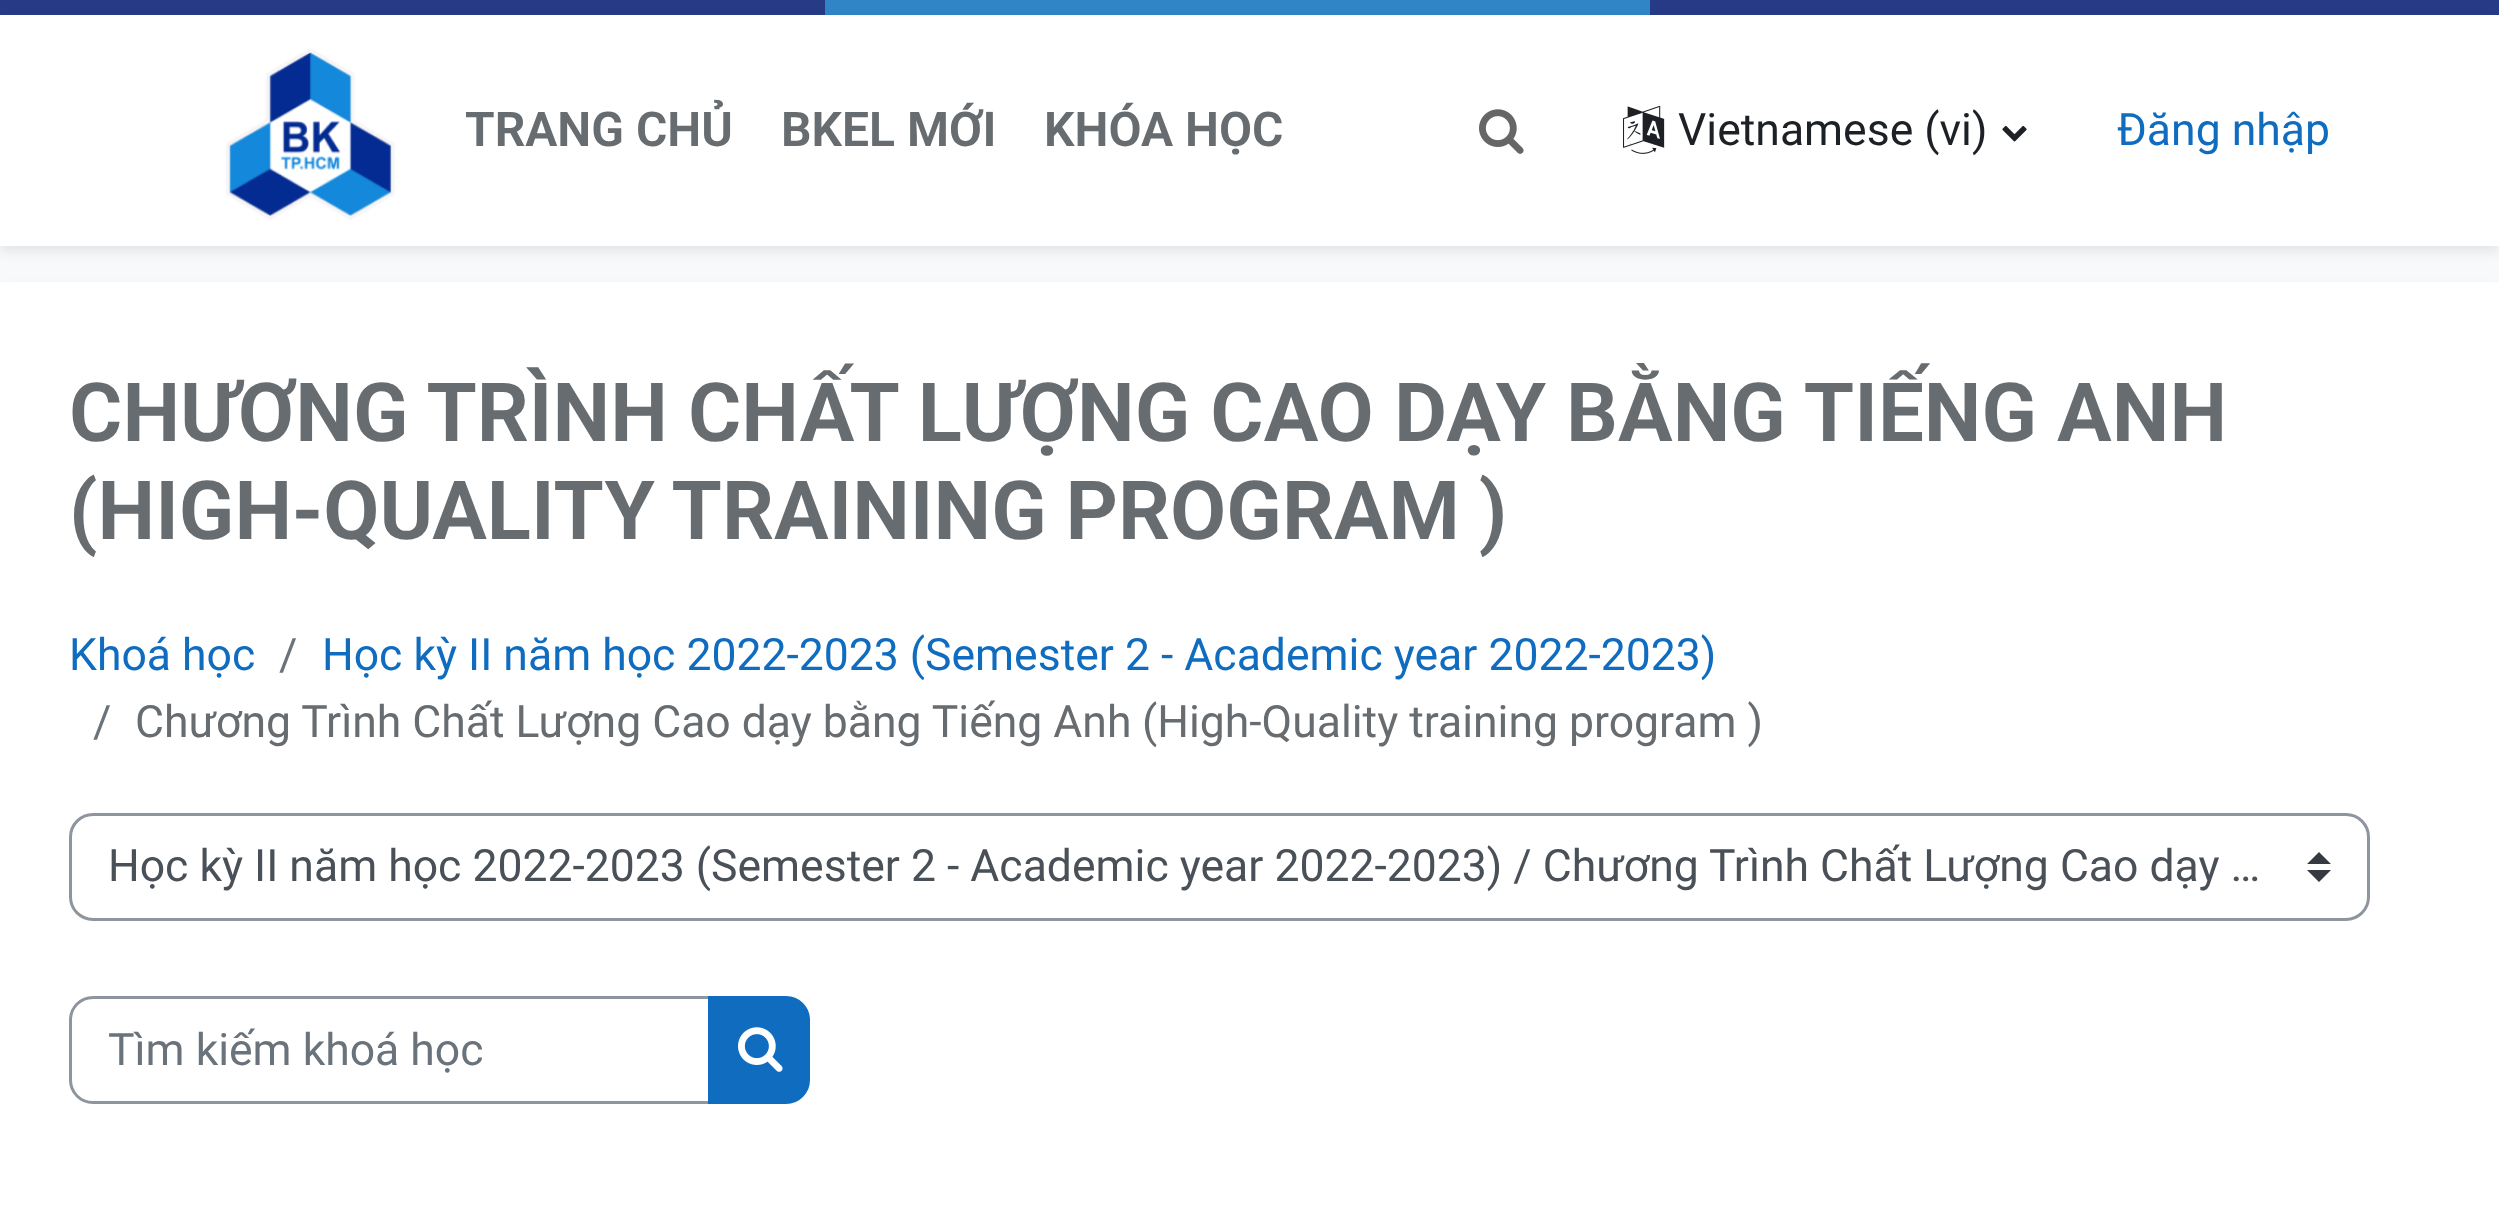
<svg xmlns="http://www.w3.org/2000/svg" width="2499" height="1212">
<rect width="100%" height="100%" fill="#f8f9fa"/>
<rect width="825" height="15" fill="#263a86"/>
<rect x="825" width="825" height="15" fill="#3085c6"/>
<rect x="1650" width="849" height="15" fill="#263a86"/>
<rect y="21" width="2499" height="231" fill="#00000014" filter="blur(6px)"/>
<rect y="15" width="2499" height="231" fill="#fff"/>
<image x="226" y="48" width="169" height="173" href="media/1.png"/>
<text x="465" y="146" style="font-family:Roboto;font-size:48px;font-weight:600;fill:#676c70">TRANG CHỦ</text>
<text x="781" y="146" style="font-family:Roboto;font-size:48px;font-weight:600;fill:#676c70">BKEL MỚI</text>
<text x="1044" y="146" style="font-family:Roboto;font-size:48px;font-weight:600;fill:#676c70">KHÓA HỌC</text>
<image x="1479" y="109" width="45" height="45" href="media/2.png"/>
<image x="1623" y="105" width="42" height="49" href="media/3.png"/>
<text x="1678" y="145" style="font-family:Roboto;font-size:44.5px;fill:#1d2125">Vietnamese (vi)</text>
<image x="2002" y="125" width="25" height="17" href="media/4.png"/>
<text x="2117" y="145" style="font-family:Roboto;font-size:44.5px;fill:#0f6cbf">Đăng nhập</text>
<rect y="288" width="2499" height="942" fill="#e9ecef" filter="blur(6px)"/>
<rect y="282" width="2499" height="930" fill="#fff"/>
<text x="69" y="441" word-spacing="-0.25" style="font-family:Roboto;font-size:81.6px;font-weight:600;fill:#676c70">CHƯƠNG TRÌNH CHẤT LƯỢNG CAO DẠY BẰNG TIẾNG ANH</text>
<text x="69" y="539" word-spacing="-1.5" style="font-family:Roboto;font-size:81.6px;font-weight:600;fill:#676c70">(HIGH-QUALITY TRAINING PROGRAM )</text>
<text x="69" y="670" style="font-family:Roboto;font-size:44.5px;fill:#0f6cbf">Khoá học</text>
<text x="279" y="670" style="font-family:Roboto;font-size:44.5px;fill:#6a737b">/</text>
<text x="322" y="670" style="font-family:Roboto;font-size:44.5px;fill:#0f6cbf">Học kỳ II năm học 2022-2023 (Semester 2 - Academic year 2022-2023)</text>
<text x="93" y="737" style="font-family:Roboto;font-size:44.5px;fill:#6a737b">/</text>
<text x="135" y="737" style="font-family:Roboto;font-size:44.5px;fill:#676c70">Chương Trình Chất Lượng Cao dạy bằng Tiếng Anh</text>
<text x="1142" y="737" style="font-family:Roboto;font-size:44.5px;fill:#676c70">(High-Quality training program )</text>
<path d="M2319 852l-12 12h24zm0 30l-12-12h24z" fill="#343a40"/>
<rect x="70.5" y="814.5" width="2298" height="105" rx="22.5" fill="none" stroke="#8f959e" stroke-width="3"/>
<text x="108" y="881" style="font-family:Roboto;font-size:44.5px;fill:#495057">Học kỳ II năm học 2022-2023 (Semester 2 - Academic year 2022-2023) / Chương Trình Chất Lượng Cao dạy …</text>
<path d="M93 997.5h616.5v105h-616.5c-12.5 0-22.5-10-22.5-22.5v-60c0-12.5 10-22.5 22.5-22.5z" fill="none" stroke="#8f959e" stroke-width="3"/>
<text x="108" y="1065" style="font-family:Roboto;font-size:44.5px;fill:#6a737b">Tìm kiếm khoá học</text>
<path d="M709.5 997.5h76.5c12.5 0 22.5 10 22.5 22.5v60c0 12.5-10 22.5-22.5 22.5h-76.5z" fill="#0f6cbf" stroke="#0f6cbf" stroke-width="3"/>
<image x="738" y="1027" width="45" height="45" href="media/5.png"/>
</svg>
